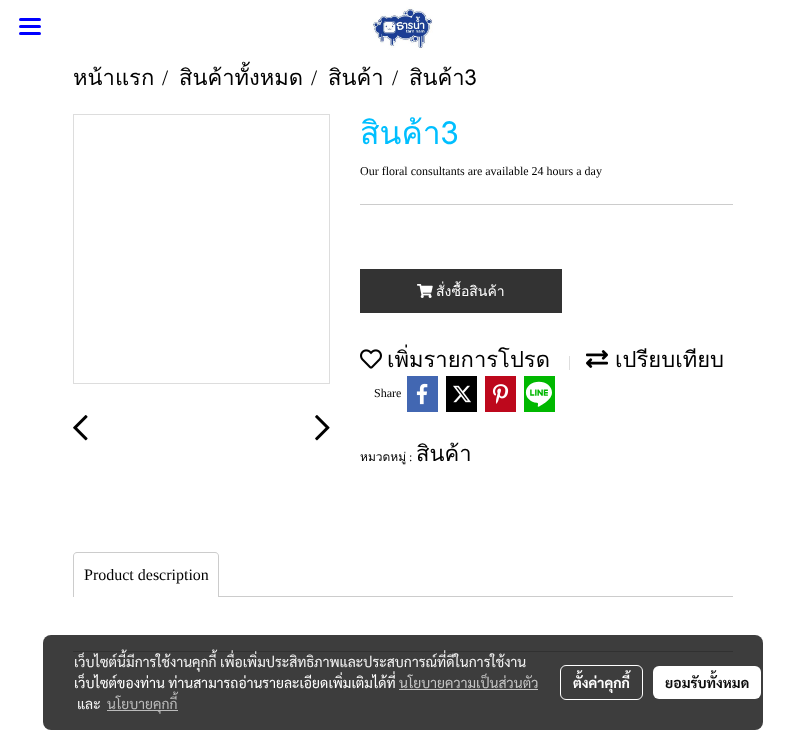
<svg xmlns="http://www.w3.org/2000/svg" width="805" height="738">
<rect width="100%" height="100%" fill="#fff"/>
<rect x="19" y="25" width="22" height="3" rx="1.5" fill="#00f"/>
<rect x="19" y="18" width="22" height="3" rx="1.5" fill="#00f"/>
<rect x="19" y="32" width="22" height="3" rx="1.5" fill="#00f"/>
<image x="372" y="7" width="61" height="43" href="media/1.png"/>
<text x="73" y="85" style="font-family:Loma;font-size:22px;fill:#000">หน้าแรก</text>
<text x="162" y="85" style="font-family:Liberation Serif;font-size:22px;fill:#000">/</text>
<text x="179" y="85" style="font-family:Loma;font-size:22px;fill:#000">สินค้าทั้งหมด</text>
<text x="311" y="85" style="font-family:Liberation Serif;font-size:22px;fill:#000">/</text>
<text x="328" y="85" style="font-family:Loma;font-size:22px;fill:#000">สินค้า</text>
<text x="392" y="85" style="font-family:Liberation Serif;font-size:22px;fill:#000">/</text>
<text x="409" y="85" style="font-family:Loma;font-size:22px;fill:#000">สินค้า3</text>
<rect x="73.5" y="114.5" width="256" height="269" fill="none" stroke="#ddd"/>
<image x="73" y="415" width="15" height="26" href="media/2.png"/>
<image x="315" y="415" width="15" height="26" href="media/3.png"/>
<text x="360" y="144" style="font-family:Loma;font-size:32px;fill:#00bfff">สินค้า3</text>
<text x="360" y="175" style="font-family:Liberation Serif;font-size:12px;fill:#000">Our floral consultants are available 24 hours a day</text>
<rect x="360" y="204" width="373" height="1" fill="#ccc"/>
<rect x="360" y="269" width="202" height="44" fill="#333"/>
<text x="436" y="296" style="font-family:Loma;font-size:14px;fill:#fff">สั่งซื้อสินค้า</text>
<image x="417" y="284" width="16" height="14" href="media/4.png"/>
<image x="360" y="349" width="22" height="20" href="media/5.png"/>
<text x="387" y="367" style="font-family:Loma;font-size:22px;fill:#000">เพิ่มรายการโปรด</text>
<rect x="569" y="356" width="1" height="14" fill="#dedede"/>
<image x="586" y="350" width="22" height="18" href="media/6.png"/>
<text x="615" y="367" style="font-family:Loma;font-size:22px;fill:#000">เปรียบเทียบ</text>
<text x="374" y="397" style="font-family:Liberation Serif;font-size:12px;fill:#000">Share</text>
<rect x="407" y="376" width="31" height="36" fill="#4267b2"/>
<image x="416" y="383" width="12" height="22" href="media/7.png"/>
<rect x="446" y="376" width="31" height="36" fill="#000"/>
<image x="453" y="385" width="18" height="18" href="media/8.png"/>
<rect x="485" y="376" width="31" height="36" fill="#bd081c"/>
<image x="492" y="384" width="17" height="20" href="media/9.png"/>
<rect x="524" y="376" width="31" height="36" fill="#00b800"/>
<image x="525" y="381" width="27" height="26" href="media/10.png"/>
<text x="360" y="461" style="font-family:Loma;font-size:12px;fill:#000">หมวดหมู่</text>
<text x="409" y="461" style="font-family:Liberation Serif;font-size:12px;fill:#000">:</text>
<text x="416" y="461" style="font-family:Loma;font-size:22px;fill:#000">สินค้า</text>
<path d="M77 552h138c2 0 4 2 4 4v41h-146v-41c0-2 2-4 4-4zm0 1h138c2 0 3 1 3 3v41h-144v-41c0-2 1-3 3-3z" fill="#ccc" fill-rule="evenodd"/>
<text x="84" y="580" style="font-family:Liberation Serif;font-size:16px;fill:#000">Product description</text>
<rect x="219" y="596" width="514" height="1" fill="#ccc"/>
<rect x="73" y="651" width="660" height="1" fill="#ccc"/>
<rect x="43" y="635" width="720" height="95" rx="8" fill="#000000c2"/>
<text x="74" y="667" style="font-family:Sarabun;font-size:14px;fill:#f5f5f5">เว็บไซต์นี้มีการใช้งานคุกกี้ เพื่อเพิ่มประสิทธิภาพและประสบการณ์ที่ดีในการใช้งาน</text>
<text x="74" y="688" style="font-family:Sarabun;font-size:14px;fill:#fff">เว็บไซต์ของท่าน ท่านสามารถอ่านรายละเอียดเพิ่มเติมได้ที่</text>
<text x="399" y="688" style="font-family:Sarabun;font-size:14px;fill:#c5c5c5">นโยบายความเป็นส่วนตัว</text>
<rect x="399" y="689" width="139" height="1" fill="#c5c5c5"/>
<text x="77" y="709" style="font-family:Sarabun;font-size:14px;fill:#f5f5f5">และ</text>
<rect x="107" y="710" width="71" height="1" fill="#c2c2c2f2"/>
<text x="107" y="709" style="font-family:Sarabun;font-size:14px;fill:#bbb">นโยบายคุกกี้</text>
<rect x="560.5" y="665.5" width="82" height="34" rx="5.5" fill="none" stroke="#fff"/>
<text x="573" y="688" style="font-family:Sarabun;font-size:14px;font-weight:bold;fill:#fff">ตั้งค่าคุกกี้</text>
<rect x="653" y="666" width="108" height="33" rx="6" fill="#fff"/>
<text x="665" y="688" style="font-family:Sarabun;font-size:14px;font-weight:bold;fill:#0d0d0d">ยอมรับทั้งหมด</text>
</svg>
